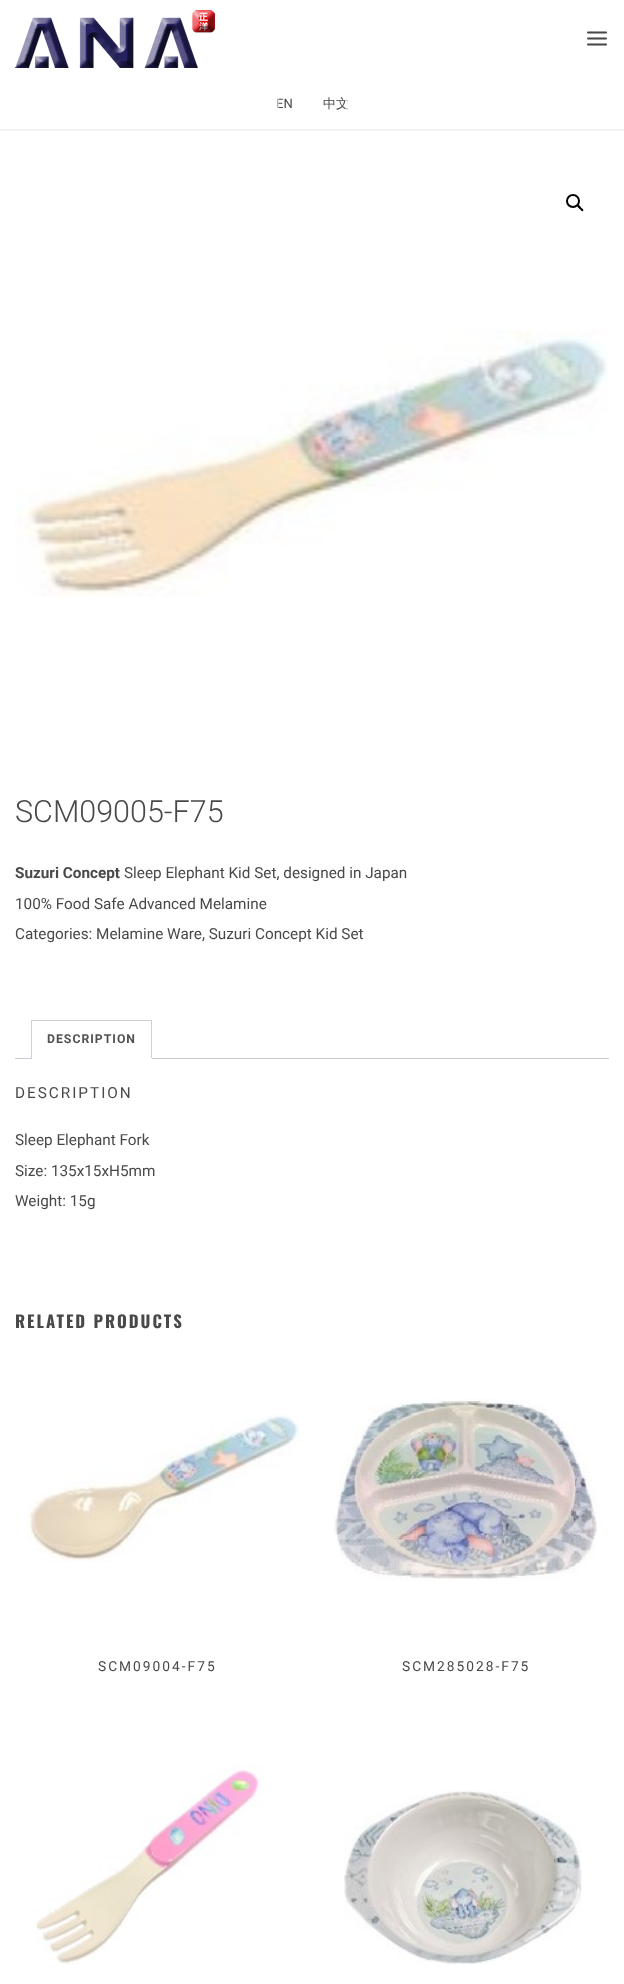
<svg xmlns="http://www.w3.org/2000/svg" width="624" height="1984">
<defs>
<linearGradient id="g1" gradientUnits="userSpaceOnUse" x1="259" y1="104" x2="279" y2="104"><stop offset="0" stop-color="#fff"/><stop offset="1" stop-color="#fff" stop-opacity="0.5"/></linearGradient>
<linearGradient id="g2" gradientUnits="userSpaceOnUse" x1="365" y1="104" x2="345" y2="104"><stop offset="0" stop-color="#fff"/><stop offset="1" stop-color="#fff" stop-opacity="0.5"/></linearGradient>
</defs>
<rect width="100%" height="100%" fill="#fff"/>
<image x="15" y="10" width="200" height="58" href="media/1.png"/>
<image x="587" y="31" width="20" height="15" href="media/2.png"/>
<text x="276" y="108" style="font-family:Roboto;font-size:13px;fill:#494949">EN</text>
<text x="323" y="108" style="font-family:WenQuanYi Zen Hei;font-size:13px;font-weight:500;fill:#494949">中文</text>
<rect x="276" y="98" width="3" height="10" fill="url(#g1)"/>
<rect x="345" y="100" width="3" height="10" fill="url(#g2)"/>
<rect y="129" width="624" height="2" fill="#f2f2f2"/>
<circle cx="573" cy="201" r="6" fill="none" stroke="#000" stroke-width="2"/>
<path d="M577.5 205.5c1.5-1.5 3 1.5 3.5 2c.5 .5 3.5 2.5 2 3.5c-1 1-2.5-1.5-3.5-2c-.5-1-3-2.5-2-3.5z" fill="#000"/>
<image x="15" y="329" width="593" height="268" href="media/3.png"/>
<text x="15" y="822" style="font-family:Roboto;font-size:30.5px;font-weight:300;fill:#494949">SCM09005-F75</text>
<text x="15" y="878" style="font-family:Roboto;font-size:15.3px;font-weight:bold;fill:#494949">Suzuri Concept</text>
<text x="124" y="878" style="font-family:Roboto;font-size:15.3px;fill:#494949">Sleep Elephant Kid Set, designed in Japan</text>
<text x="15" y="909" style="font-family:Roboto;font-size:15.3px;fill:#494949">100% Food Safe Advanced Melamine</text>
<text x="15" y="939" style="font-family:Roboto;font-size:15.3px;fill:#494949">Categories: Melamine Ware, Suzuri Concept Kid Set</text>
<rect x="31" y="1020" width="121" height="1" fill="#d3ced2"/>
<rect x="15" y="1058" width="594" height="1" fill="#cfc8d8"/>
<rect x="151" y="1020" width="1" height="39" fill="#d3ced2"/>
<rect x="31" y="1058" width="121" height="1" fill="#fff"/>
<rect x="31" y="1020" width="1" height="39" fill="#d3ced2"/>
<text x="47" y="1043" style="font-family:Roboto;font-size:12.25px;font-weight:bold;letter-spacing:1px;fill:#515151">DESCRIPTION</text>
<text x="15" y="1098" style="font-family:Roboto;font-size:15.3px;letter-spacing:2px;fill:#494949">DESCRIPTION</text>
<text x="15" y="1145" style="font-family:Roboto;font-size:15.3px;fill:#494949">Sleep Elephant Fork</text>
<text x="15" y="1176" style="font-family:Roboto;font-size:15.3px;fill:#494949">Size: 135x15xH5mm</text>
<text x="15" y="1206" style="font-family:Roboto;font-size:15.3px;fill:#494949">Weight: 15g</text>
<text x="15" y="1328" style="font-family:Oswald;font-size:16.75px;font-weight:bold;letter-spacing:2px;fill:#494949">RELATED PRODUCTS</text>
<image x="27" y="1414" width="273" height="148" href="media/4.png"/>
<text x="98" y="1671" style="font-family:Roboto;font-size:13.75px;letter-spacing:2px;fill:#494949">SCM09004-F75</text>
<image x="334" y="1399" width="263" height="182" href="media/5.png"/>
<text x="402" y="1671" style="font-family:Roboto;font-size:13.75px;letter-spacing:2px;fill:#494949">SCM285028-F75</text>
<image x="35" y="1764" width="228" height="201" href="media/6.png"/>
<image x="344" y="1790" width="238" height="175" href="media/7.png"/>
</svg>
